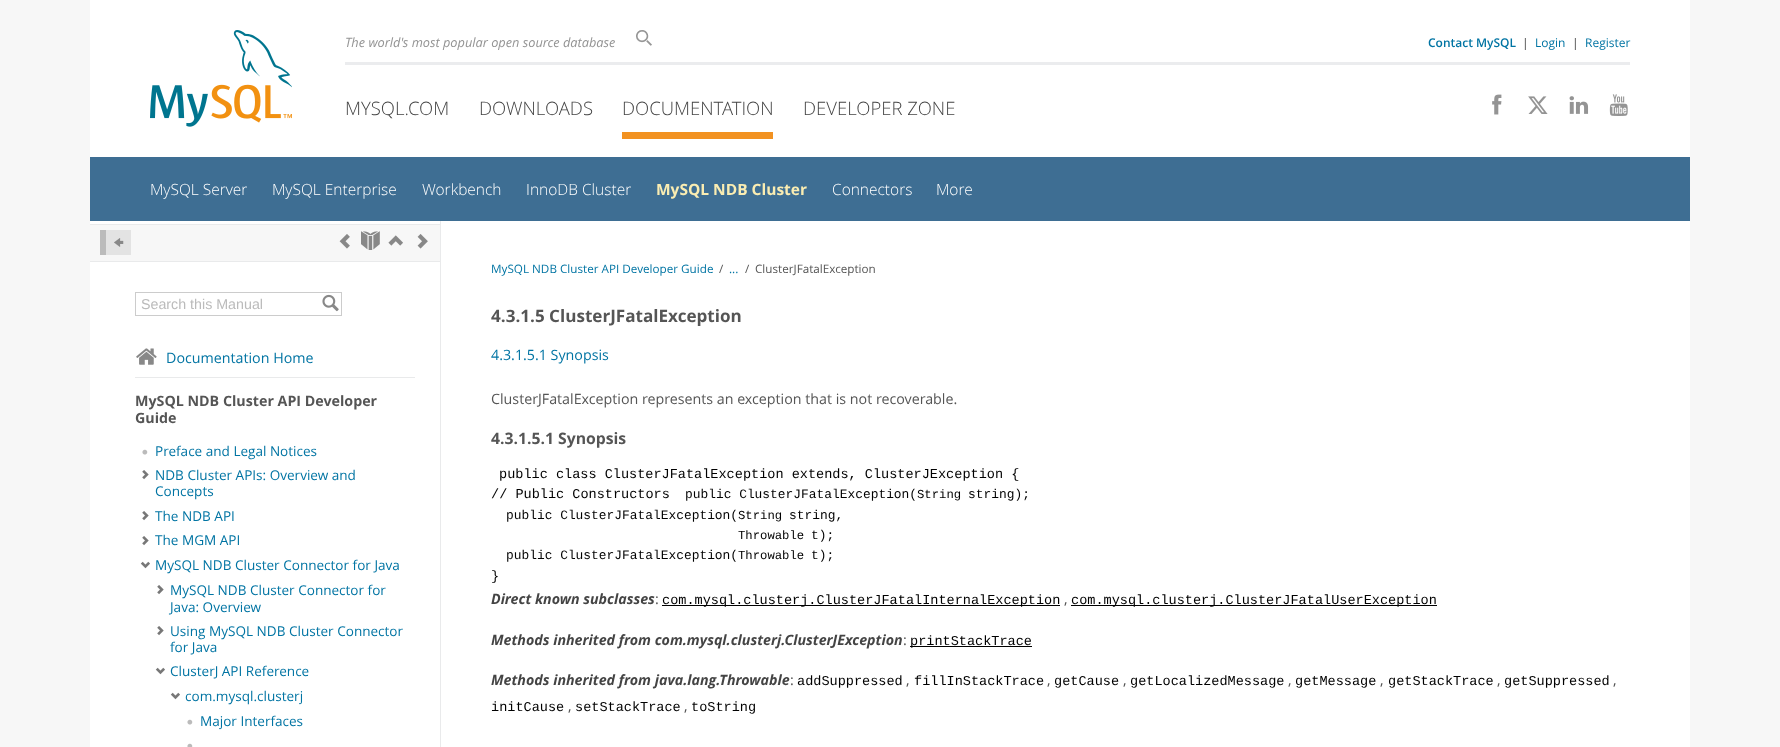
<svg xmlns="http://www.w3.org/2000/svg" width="1780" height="747">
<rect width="100%" height="100%" fill="#f7f7f7"/>
<rect x="90" width="1600" height="747" fill="#fff"/>
<image x="150" y="30" width="142" height="97" href="media/1.png"/>
<rect x="345" y="62" width="1285" height="3" fill="#ebecee"/>
<text x="345" y="47" style="font-family:Open Sans;font-size:12.8px;font-style:italic;fill:#949494">The world's most popular open source database</text>
<image x="636" y="30" width="16" height="16" href="media/2.png"/>
<text x="1428" y="47" style="font-family:Open Sans;font-size:12px;font-weight:600;fill:#0074a3">Contact MySQL</text>
<text x="1522" y="47" style="font-family:Open Sans;font-size:12px;fill:#444">|</text>
<text x="1535" y="47" style="font-family:Open Sans;font-size:12px;fill:#0074a3">Login</text>
<text x="1572" y="47" style="font-family:Open Sans;font-size:12px;fill:#444">|</text>
<text x="1585" y="47" style="font-family:Open Sans;font-size:12px;fill:#0074a3">Register</text>
<text x="345" y="115" style="font-family:Open Sans;font-size:18.5px;font-weight:300;fill:#444">MYSQL.COM</text>
<text x="479" y="115" style="font-family:Open Sans;font-size:18.5px;font-weight:300;fill:#444">DOWNLOADS</text>
<rect x="622" y="132" width="151" height="7" fill="#f29221"/>
<text x="622" y="115" style="font-family:Open Sans;font-size:18.5px;font-weight:300;fill:#444">DOCUMENTATION</text>
<text x="803" y="115" style="font-family:Open Sans;font-size:18.5px;font-weight:300;fill:#444">DEVELOPER ZONE</text>
<image x="1492" y="94" width="10" height="21" href="media/3.png"/>
<image x="1528" y="96" width="20" height="18" href="media/4.png"/>
<image x="1569" y="96" width="20" height="18" href="media/5.png"/>
<image x="1609" y="94" width="19" height="22" href="media/6.png"/>
<rect x="90" y="157" width="1600" height="64" fill="#3e6e93"/>
<text x="150" y="195" style="font-family:Open Sans;font-size:15.5px;font-weight:300;fill:#fff">MySQL Server</text>
<text x="272" y="195" style="font-family:Open Sans;font-size:15.5px;font-weight:300;fill:#fff">MySQL Enterprise</text>
<text x="422" y="195" style="font-family:Open Sans;font-size:15.5px;font-weight:300;fill:#fff">Workbench</text>
<text x="526" y="195" style="font-family:Open Sans;font-size:15.5px;font-weight:300;fill:#fff">InnoDB Cluster</text>
<text x="656" y="195" style="font-family:Open Sans;font-size:15.5px;font-weight:bold;fill:#faedb2">MySQL NDB Cluster</text>
<text x="832" y="195" style="font-family:Open Sans;font-size:15.5px;font-weight:300;fill:#fff">Connectors</text>
<text x="936" y="195" style="font-family:Open Sans;font-size:15.5px;font-weight:300;fill:#fff">More</text>
<rect x="440" y="221" width="1" height="526" fill="#e9eaeb"/>
<rect x="90" y="225" width="350" height="36" fill="#f7f7f7"/>
<rect x="90" y="224" width="350" height="1" fill="#e9eaeb"/>
<rect x="90" y="261" width="350" height="1" fill="#e9eaeb"/>
<rect x="106" y="230" width="25" height="25" fill="#e3e3e3"/>
<rect x="100" y="230" width="6" height="25" fill="#bbb"/>
<image x="114" y="238" width="10" height="9" href="media/7.png"/>
<image x="339" y="234" width="11" height="15" href="media/8.png"/>
<image x="361" y="231" width="19" height="19" href="media/9.png"/>
<image x="388" y="235" width="15" height="11" href="media/10.png"/>
<image x="417" y="234" width="11" height="15" href="media/11.png"/>
<rect x="135.5" y="292.5" width="206" height="23" fill="none" stroke="#ccc"/>
<text x="141" y="309" style="font-family:Liberation Sans;font-size:14.25px;fill:#bbb">Search this Manual</text>
<image x="322" y="294" width="17" height="18" href="media/12.png"/>
<image x="136" y="348" width="21" height="17" href="media/13.png"/>
<text x="166" y="363" style="font-family:Open Sans;font-size:14.25px;fill:#0074a3">Documentation Home</text>
<rect x="135" y="377" width="280" height="1" fill="#e9eaeb"/>
<text x="135" y="406" style="font-family:Open Sans;font-size:14.25px;font-weight:bold;fill:#555">MySQL NDB Cluster API Developer</text>
<text x="135" y="423" style="font-family:Open Sans;font-size:14.25px;font-weight:bold;fill:#555">Guide</text>
<image x="142" y="449" width="6" height="6" href="media/14.png"/>
<text x="155" y="456" style="font-family:Open Sans;font-size:13.55px;fill:#0074a3">Preface and Legal Notices</text>
<image x="142" y="470" width="7" height="10" href="media/15.png"/>
<text x="155" y="480" style="font-family:Open Sans;font-size:13.55px;fill:#0074a3">NDB Cluster APIs: Overview and</text>
<text x="155" y="496" style="font-family:Open Sans;font-size:13.55px;fill:#0074a3">Concepts</text>
<image x="142" y="511" width="7" height="10" href="media/15.png"/>
<text x="155" y="521" style="font-family:Open Sans;font-size:13.55px;fill:#0074a3">The NDB API</text>
<image x="142" y="536" width="7" height="10" href="media/15.png"/>
<text x="155" y="545" style="font-family:Open Sans;font-size:13.55px;fill:#0074a3">The MGM API</text>
<image x="140" y="561" width="10" height="8" href="media/16.png"/>
<text x="155" y="570" style="font-family:Open Sans;font-size:13.55px;fill:#0074a3">MySQL NDB Cluster Connector for Java</text>
<image x="157" y="585" width="7" height="10" href="media/15.png"/>
<text x="170" y="595" style="font-family:Open Sans;font-size:13.55px;fill:#0074a3">MySQL NDB Cluster Connector for</text>
<text x="170" y="612" style="font-family:Open Sans;font-size:13.55px;fill:#0074a3">Java: Overview</text>
<image x="157" y="626" width="7" height="10" href="media/15.png"/>
<text x="170" y="636" style="font-family:Open Sans;font-size:13.55px;fill:#0074a3">Using MySQL NDB Cluster Connector</text>
<text x="170" y="652" style="font-family:Open Sans;font-size:13.55px;fill:#0074a3">for Java</text>
<image x="155" y="667" width="10" height="8" href="media/16.png"/>
<text x="170" y="676" style="font-family:Open Sans;font-size:13.55px;fill:#0074a3">ClusterJ API Reference</text>
<image x="170" y="692" width="10" height="8" href="media/16.png"/>
<text x="185" y="701" style="font-family:Open Sans;font-size:13.55px;fill:#0074a3">com.mysql.clusterj</text>
<image x="187" y="719" width="6" height="6" href="media/14.png"/>
<text x="200" y="726" style="font-family:Open Sans;font-size:13.55px;fill:#0074a3">Major Interfaces</text>
<image x="187" y="743" width="6" height="4" href="media/17.png"/>
<text x="491" y="273" style="font-family:Open Sans;font-size:11.7px;fill:#0074a3">MySQL NDB Cluster API Developer Guide</text>
<text x="719" y="273" style="font-family:Open Sans;font-size:11.7px;fill:#555">/</text>
<text x="729" y="273" style="font-family:Open Sans;font-size:11.7px;fill:#0074a3">...</text>
<text x="745" y="273" style="font-family:Open Sans;font-size:11.7px;fill:#555">/</text>
<text x="755" y="273" style="font-family:Open Sans;font-size:11.7px;fill:#555">ClusterJFatalException</text>
<text x="491" y="322" style="font-family:Open Sans;font-size:17.1px;font-weight:bold;fill:#555">4.3.1.5 ClusterJFatalException</text>
<text x="491" y="360" style="font-family:Open Sans;font-size:14.25px;fill:#0074a3">4.3.1.5.1 Synopsis</text>
<text x="491" y="404" style="font-family:Open Sans;font-size:14.25px;fill:#555">ClusterJFatalException represents an exception that is not recoverable.</text>
<text x="491" y="444" style="font-family:Open Sans;font-size:15.75px;font-weight:bold;fill:#555">4.3.1.5.1 Synopsis</text>
<text x="499" y="478" style="font-family:Liberation Mono;font-size:13.55px;fill:#000">public class ClusterJFatalException extends, ClusterJException {</text>
<text x="491" y="498" style="font-family:Liberation Mono;font-size:13.55px;fill:#000">// Public Constructors</text>
<text x="685" y="498" style="font-family:Liberation Mono;font-size:12.9px;fill:#000">public ClusterJFatalException(</text>
<text x="917" y="498" style="font-family:Liberation Mono;font-size:12.25px;fill:#000">String</text>
<text x="968" y="498" style="font-family:Liberation Mono;font-size:12.9px;fill:#000">string);</text>
<text x="506" y="519" style="font-family:Liberation Mono;font-size:12.9px;fill:#000">public ClusterJFatalException(</text>
<text x="738" y="519" style="font-family:Liberation Mono;font-size:12.25px;fill:#000">String</text>
<text x="789" y="519" style="font-family:Liberation Mono;font-size:12.9px;fill:#000">string,</text>
<text x="738" y="539" style="font-family:Liberation Mono;font-size:12.25px;fill:#000">Throwable</text>
<text x="811" y="539" style="font-family:Liberation Mono;font-size:12.9px;fill:#000">t);</text>
<text x="506" y="559" style="font-family:Liberation Mono;font-size:12.9px;fill:#000">public ClusterJFatalException(</text>
<text x="738" y="559" style="font-family:Liberation Mono;font-size:12.25px;fill:#000">Throwable</text>
<text x="811" y="559" style="font-family:Liberation Mono;font-size:12.9px;fill:#000">t);</text>
<text x="491" y="580" style="font-family:Liberation Mono;font-size:13.55px;fill:#000">}</text>
<text x="491" y="604" style="font-family:Open Sans;font-size:14.25px;font-weight:bold;font-style:italic;fill:#444">Direct known subclasses</text>
<text x="655" y="604" style="font-family:Open Sans;font-size:14.25px;fill:#555">:</text>
<rect x="662" y="605" width="398" height="1" fill="#000"/>
<text x="662" y="604" style="font-family:Liberation Mono;font-size:13.55px;fill:#000">com.mysql.clusterj.ClusterJFatalInternalException</text>
<text x="1064" y="604" style="font-family:Open Sans;font-size:14.25px;fill:#555">,</text>
<rect x="1071" y="605" width="366" height="1" fill="#000"/>
<text x="1071" y="604" style="font-family:Liberation Mono;font-size:13.55px;fill:#000">com.mysql.clusterj.ClusterJFatalUserException</text>
<text x="491" y="645" style="font-family:Open Sans;font-size:14.25px;font-weight:bold;font-style:italic;fill:#444">Methods inherited from com.mysql.clusterj.ClusterJException</text>
<text x="903" y="645" style="font-family:Open Sans;font-size:14.25px;fill:#555">:</text>
<rect x="910" y="646" width="122" height="1" fill="#000"/>
<text x="910" y="645" style="font-family:Liberation Mono;font-size:13.55px;fill:#000">printStackTrace</text>
<text x="491" y="685" style="font-family:Open Sans;font-size:14.25px;font-weight:bold;font-style:italic;fill:#444">Methods inherited from java.lang.Throwable</text>
<text x="790" y="685" style="font-family:Open Sans;font-size:14.25px;fill:#555">:</text>
<text x="797" y="685" style="font-family:Liberation Mono;font-size:13.55px;fill:#000">addSuppressed</text>
<text x="906" y="685" style="font-family:Open Sans;font-size:14.25px;fill:#555">,</text>
<text x="914" y="685" style="font-family:Liberation Mono;font-size:13.55px;fill:#000">fillInStackTrace</text>
<text x="1047" y="685" style="font-family:Open Sans;font-size:14.25px;fill:#555">,</text>
<text x="1054" y="685" style="font-family:Liberation Mono;font-size:13.55px;fill:#000">getCause</text>
<text x="1123" y="685" style="font-family:Open Sans;font-size:14.25px;fill:#555">,</text>
<text x="1130" y="685" style="font-family:Liberation Mono;font-size:13.55px;fill:#000">getLocalizedMessage</text>
<text x="1288" y="685" style="font-family:Open Sans;font-size:14.25px;fill:#555">,</text>
<text x="1295" y="685" style="font-family:Liberation Mono;font-size:13.55px;fill:#000">getMessage</text>
<text x="1380" y="685" style="font-family:Open Sans;font-size:14.25px;fill:#555">,</text>
<text x="1388" y="685" style="font-family:Liberation Mono;font-size:13.55px;fill:#000">getStackTrace</text>
<text x="1497" y="685" style="font-family:Open Sans;font-size:14.25px;fill:#555">,</text>
<text x="1504" y="685" style="font-family:Liberation Mono;font-size:13.55px;fill:#000">getSuppressed</text>
<text x="1613" y="685" style="font-family:Open Sans;font-size:14.25px;fill:#555">,</text>
<text x="491" y="711" style="font-family:Liberation Mono;font-size:13.55px;fill:#000">initCause</text>
<text x="568" y="711" style="font-family:Open Sans;font-size:14.25px;fill:#555">,</text>
<text x="575" y="711" style="font-family:Liberation Mono;font-size:13.55px;fill:#000">setStackTrace</text>
<text x="684" y="711" style="font-family:Open Sans;font-size:14.25px;fill:#555">,</text>
<text x="691" y="711" style="font-family:Liberation Mono;font-size:13.55px;fill:#000">toString</text>
</svg>
